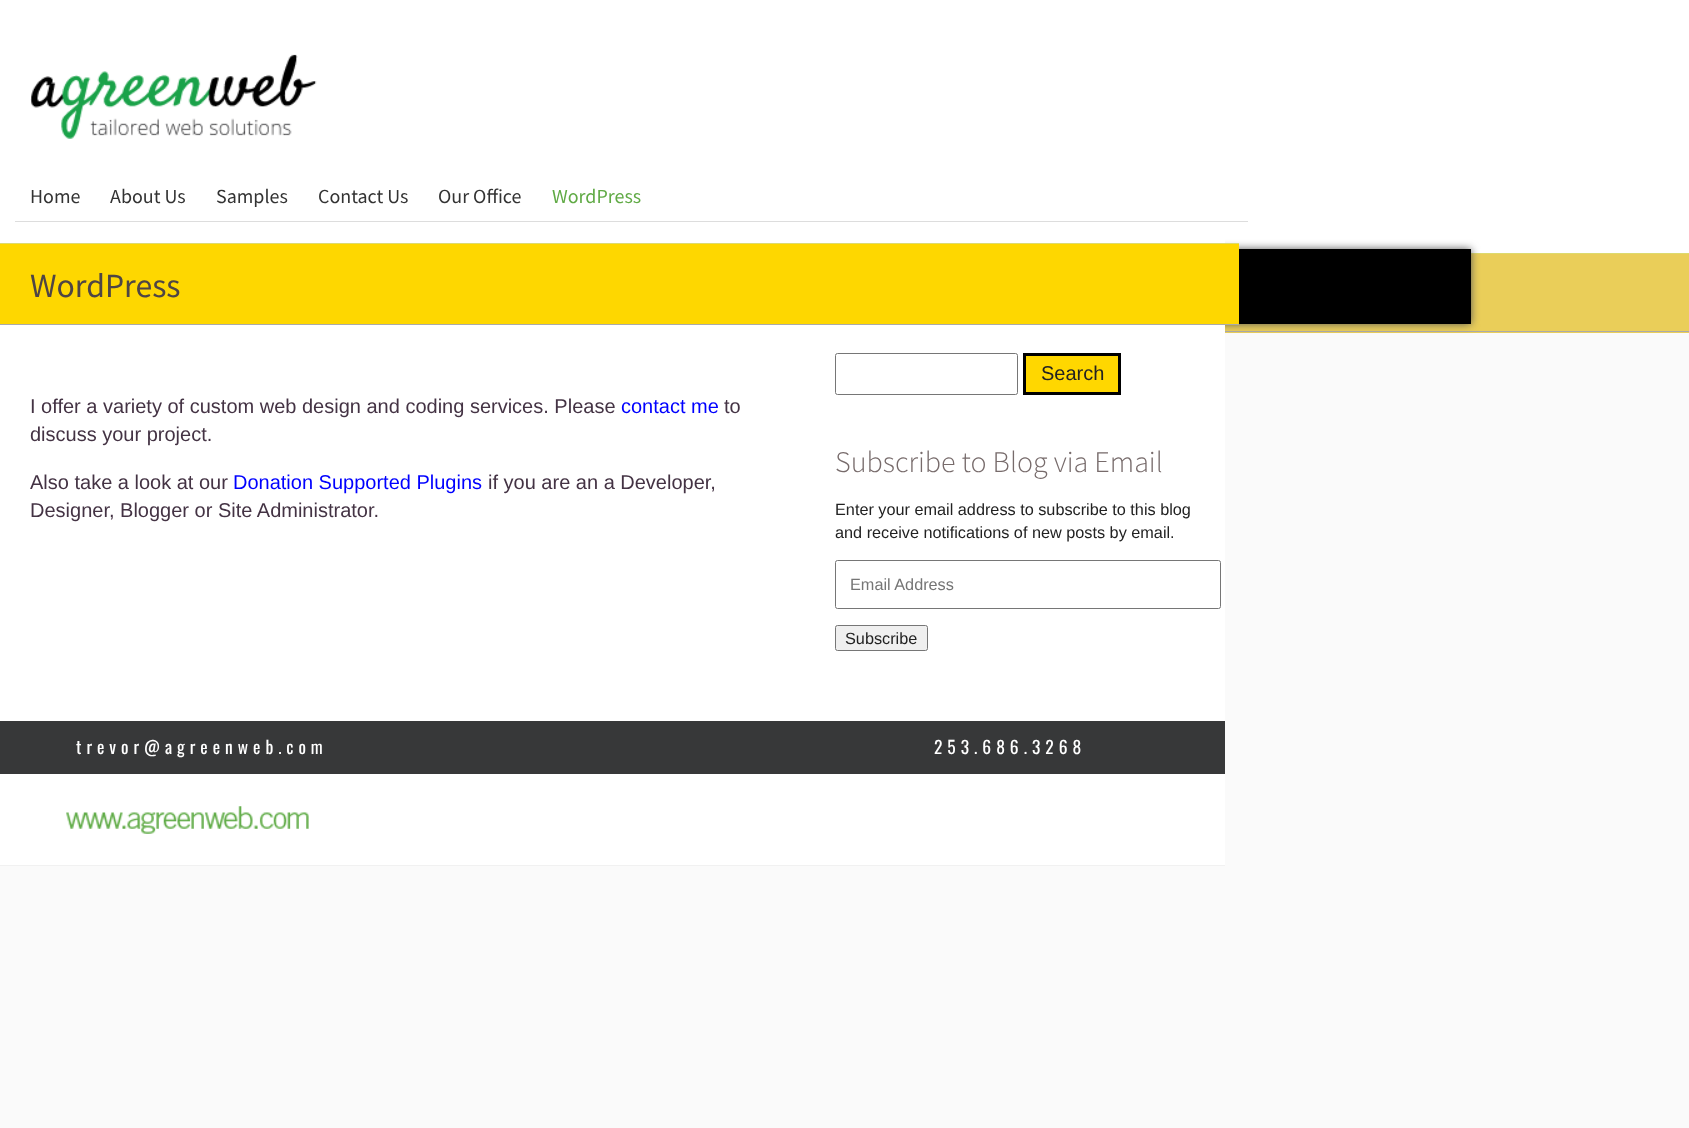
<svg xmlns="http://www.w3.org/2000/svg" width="1689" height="1128">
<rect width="100%" height="100%" fill="#fafafa"/>
<rect x="1225" width="464" height="253" fill="#fff"/>
<rect x="1225" y="254" width="464" height="79" fill="#eace59"/>
<rect x="1471" y="253" width="218" height="1" fill="#ddda6f"/>
<rect x="1225" y="331" width="464" height="1" fill="#aaa"/>
<rect x="220" y="249" width="1251" height="75" fill="#555" filter="blur(4.5px)"/>
<rect x="1239" y="249" width="232" height="75" fill="#000"/>
<rect width="1225" height="865" fill="#fff"/>
<image x="30" y="54" width="287" height="85" href="media/1.png"/>
<rect x="15" y="221" width="1233" height="1" fill="#ddd"/>
<text x="30" y="203" style="font-family:Source Sans Pro;font-size:20px;fill:#333">Home</text>
<text x="110" y="203" style="font-family:Source Sans Pro;font-size:20px;fill:#333">About Us</text>
<text x="216" y="203" style="font-family:Source Sans Pro;font-size:20px;fill:#333">Samples</text>
<text x="318" y="203" style="font-family:Source Sans Pro;font-size:20px;fill:#333">Contact Us</text>
<text x="438" y="203" style="font-family:Source Sans Pro;font-size:20px;fill:#333">Our Office</text>
<text x="552" y="203" style="font-family:Source Sans Pro;font-size:20px;fill:#60aa45">WordPress</text>
<rect y="244" width="1239" height="80" fill="#fed700"/>
<rect y="243" width="1239" height="1" fill="#ddda6f"/>
<rect y="324" width="1239" height="1" fill="#aaa"/>
<text x="30" y="297" style="font-family:Source Sans Pro;font-size:33.75px;fill:#4e4545">WordPress</text>
<text x="30" y="413" style="font-family:Liberation Sans;font-size:20px;fill:#434">I offer a variety of custom web design and coding services. Please</text>
<text x="621" y="413" style="font-family:Liberation Sans;font-size:20px;fill:#00f">contact me</text>
<text x="724" y="413" style="font-family:Liberation Sans;font-size:20px;fill:#434">to</text>
<text x="30" y="441" style="font-family:Liberation Sans;font-size:20px;fill:#434">discuss your project.</text>
<text x="30" y="489" style="font-family:Liberation Sans;font-size:20px;fill:#434">Also take a look at our</text>
<text x="233" y="489" style="font-family:Liberation Sans;font-size:20px;fill:#00f">Donation Supported Plugins</text>
<text x="488" y="489" style="font-family:Liberation Sans;font-size:20px;fill:#434">if you are an a Developer,</text>
<text x="30" y="517" style="font-family:Liberation Sans;font-size:20px;fill:#434">Designer, Blogger or Site Administrator.</text>
<rect x="835.5" y="353.5" width="182" height="41" rx="2" fill="none" stroke="#767676"/>
<rect x="1024.5" y="354.5" width="95" height="39" fill="#ffd700" stroke="#000" stroke-width="3"/>
<text x="1041" y="380" style="font-family:Liberation Sans;font-size:20px;fill:#222">Search</text>
<text x="835" y="472" style="font-family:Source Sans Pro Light;font-size:30px;font-weight:300;fill:#776b6b">Subscribe to Blog via Email</text>
<text x="835" y="515" style="font-family:Liberation Sans;font-size:16.25px;fill:#222">Enter your email address to subscribe to this blog</text>
<text x="835" y="538" style="font-family:Liberation Sans;font-size:16.25px;fill:#222">and receive notifications of new posts by email.</text>
<rect x="835.5" y="560.5" width="385" height="48" rx="2" fill="none" stroke="#767676"/>
<text x="850" y="590" style="font-family:Liberation Sans;font-size:16.25px;fill:#757575">Email Address</text>
<rect x="835.5" y="625.5" width="92" height="25" rx="2" fill="#efefef" stroke="#767676"/>
<text x="845" y="644" style="font-family:Liberation Sans;font-size:16.25px;fill:#222">Subscribe</text>
<rect y="865" width="1225" height="1" fill="#f1f1f1"/>
<rect y="721" width="1225" height="53" fill="#373839"/>
<text x="76" y="754" style="font-family:Oswald;font-size:17.5px;letter-spacing:5px;fill:#fff">trevor@agreenweb.com</text>
<text x="934" y="754" style="font-family:Oswald;font-size:17.5px;letter-spacing:5px;fill:#fff">253.686.3268</text>
<image x="66" y="806" width="243" height="28" href="media/2.png"/>
</svg>
